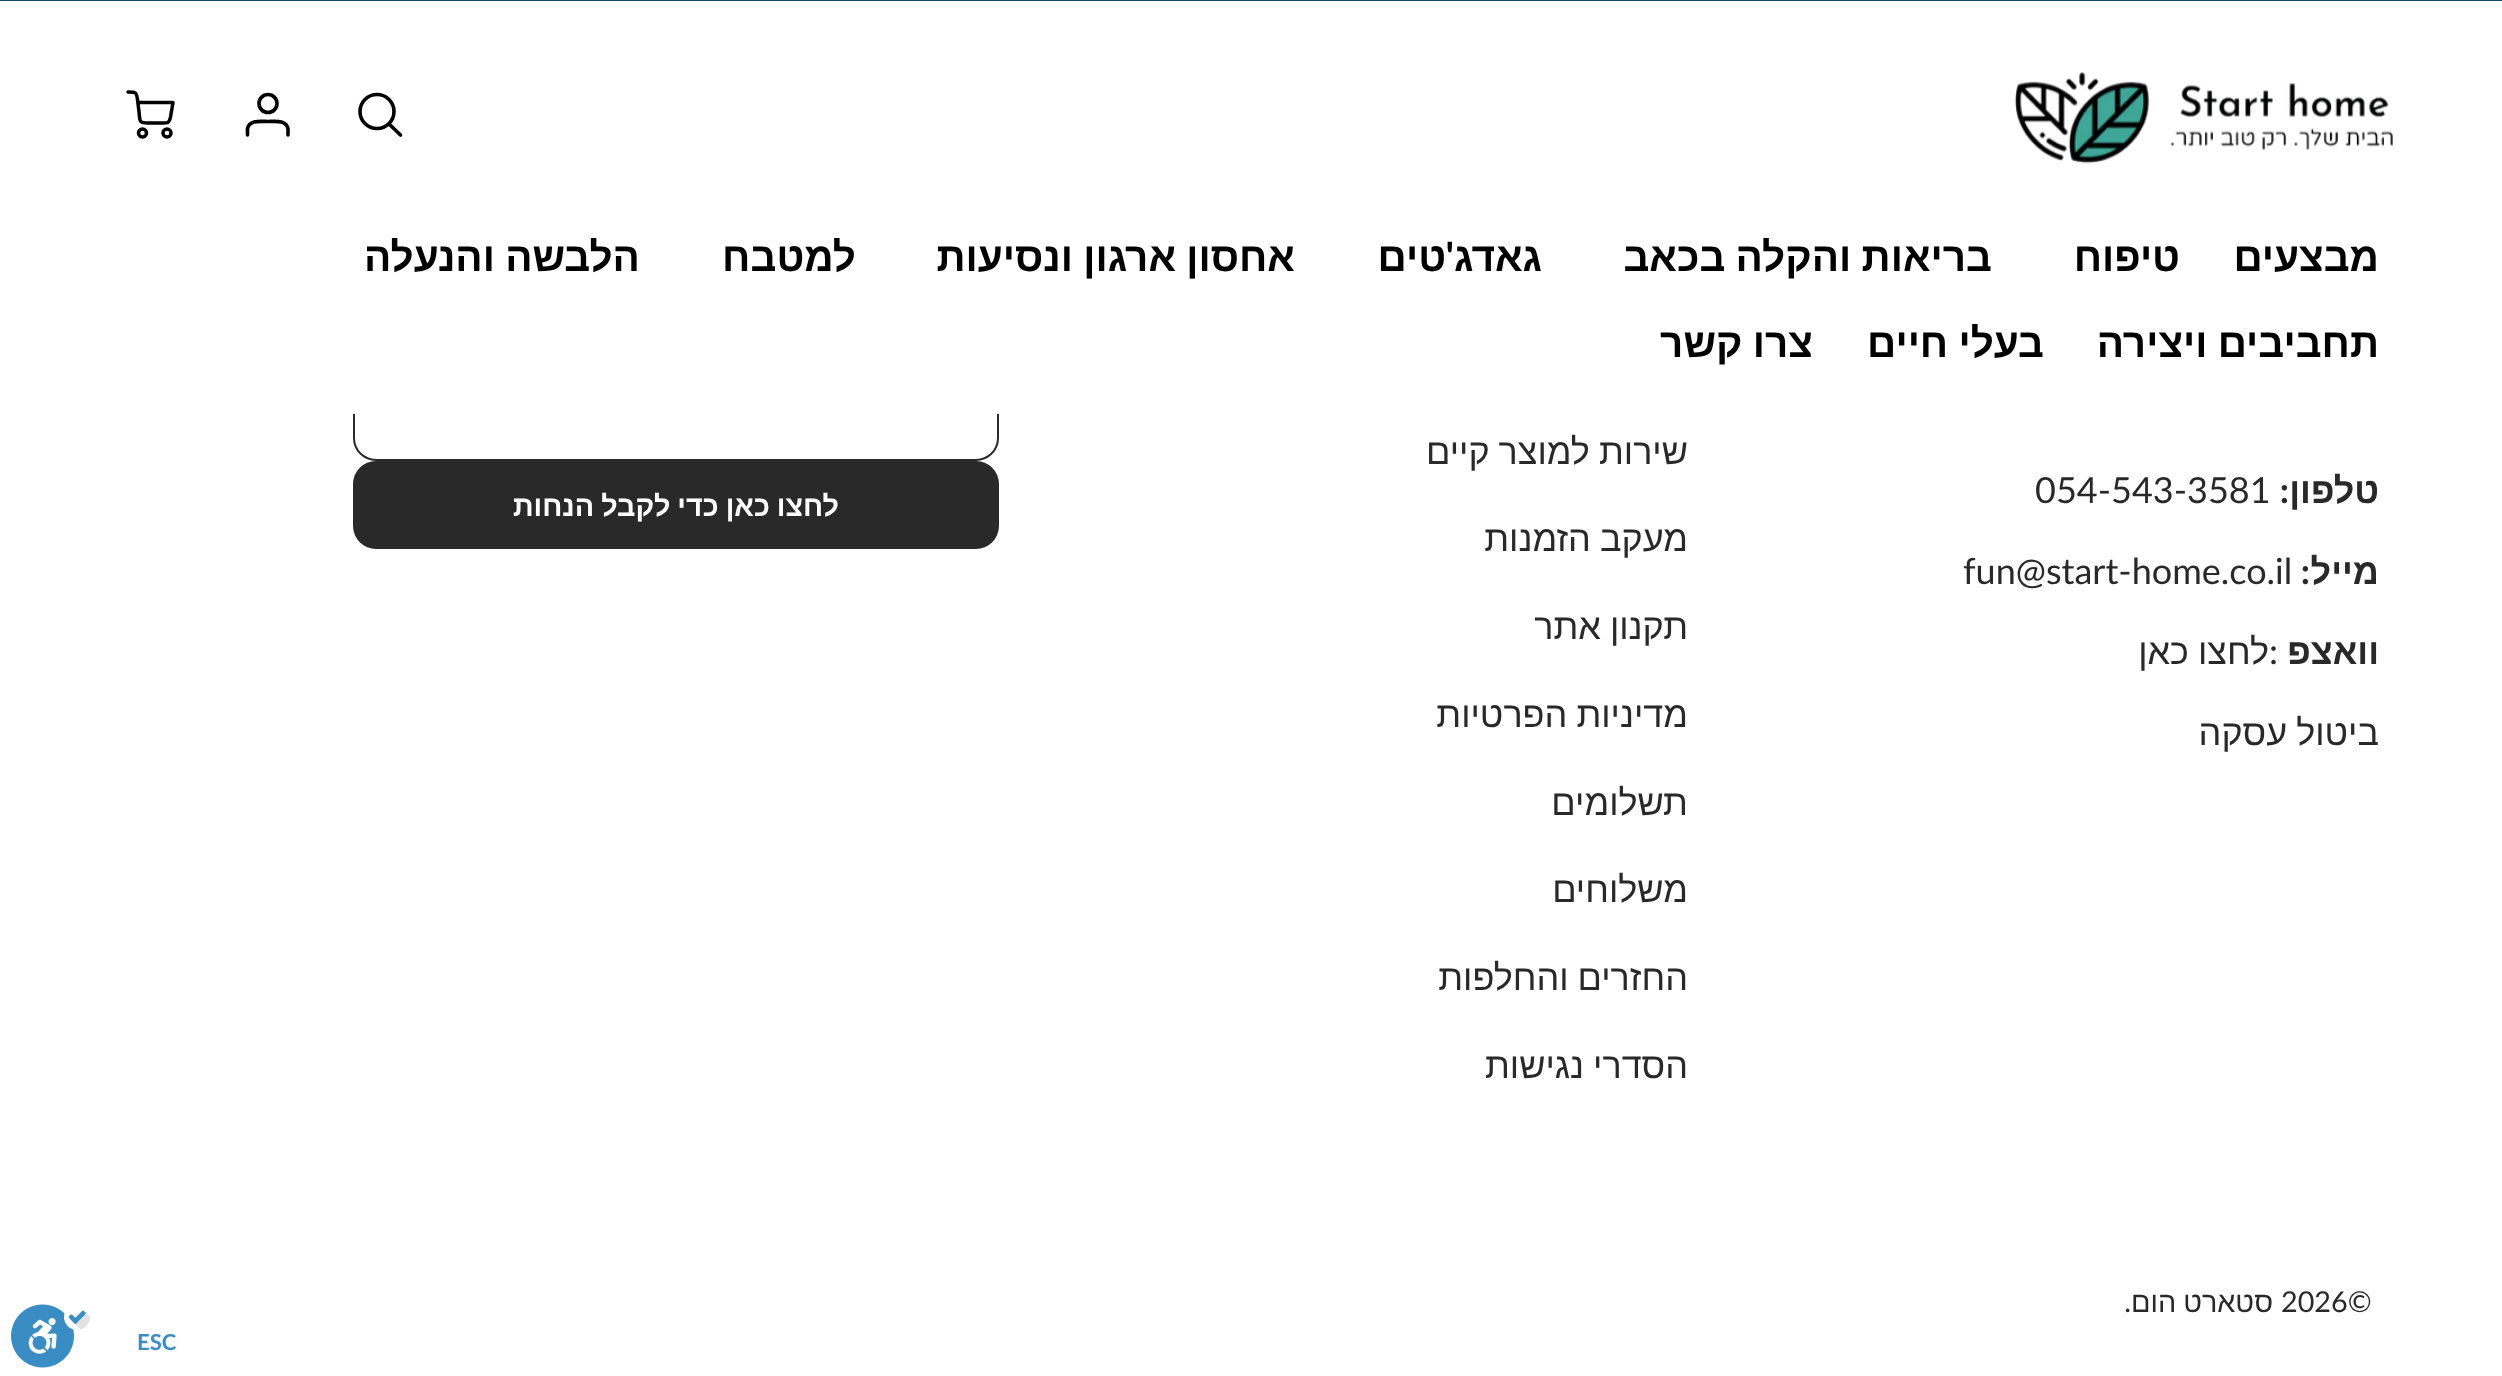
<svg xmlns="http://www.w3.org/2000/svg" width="2502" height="1376">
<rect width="100%" height="100%" fill="#fff"/>
<rect x="354" y="377" width="644" height="83" rx="22" fill="none" stroke="#292929" stroke-width="2"/>
<rect x="353" y="376" width="646" height="38" fill="#fff"/>
<image x="2014" y="72" width="379" height="92" href="media/1.png"/>
<circle cx="377" cy="111.5" r="17" fill="none" stroke="#000" stroke-width="3.6"/>
<path d="M400.5 135l-11.5-11" fill="none" stroke="#000" stroke-width="3.6" stroke-linecap="round" stroke-linejoin="round"/>
<circle cx="268" cy="103.5" r="9" fill="none" stroke="#000" stroke-width="3.6"/>
<path d="M288 135v-6.5c-2-9-13.5-7-20-7c-7 0-18.5-2-20.5 7v6.5" fill="none" stroke="#000" stroke-width="3.6" stroke-linecap="round" stroke-linejoin="round"/>
<path d="M138 102.5h35l-2.5 14.5c-1.5 7.5-4.5 6-12 6h-11c-9 0-7.5-2.5-8.5-11.5l-1.5-12c-1-7.5-2-7.5-9.5-7.5" fill="none" stroke="#000" stroke-width="3.5" stroke-linecap="round" stroke-linejoin="round"/>
<circle cx="167" cy="133" r="4" fill="none" stroke="#000" stroke-width="3.5"/>
<circle cx="142.5" cy="133" r="4" fill="none" stroke="#000" stroke-width="3.5"/>
<text x="2379" y="271" style="font-family:Liberation Sans;font-size:40.5px;font-weight:bold;direction:rtl;fill:#000">מבצעים</text>
<text x="2180" y="271" style="font-family:Liberation Sans;font-size:40.5px;font-weight:bold;direction:rtl;fill:#000">טיפוח</text>
<text x="1992" y="271" word-spacing="-1" style="font-family:Liberation Sans;font-size:40.5px;font-weight:bold;direction:rtl;fill:#000">בריאות והקלה בכאב</text>
<text x="1542" y="271" style="font-family:Liberation Sans;font-size:40.5px;font-weight:bold;direction:rtl;fill:#000">גאדג</text>
<text x="1454" y="271" style="font-family:Lato;font-size:40.5px;font-weight:bold;direction:rtl;fill:#000">'</text>
<text x="1446" y="271" style="font-family:Liberation Sans;font-size:40.5px;font-weight:bold;direction:rtl;fill:#000">טים</text>
<text x="1295" y="271" word-spacing="-1" style="font-family:Liberation Sans;font-size:40.5px;font-weight:bold;direction:rtl;fill:#000">אחסון ארגון ונסיעות</text>
<text x="856" y="271" style="font-family:Liberation Sans;font-size:40.5px;font-weight:bold;direction:rtl;fill:#000">למטבח</text>
<text x="640" y="271" word-spacing="-1" style="font-family:Liberation Sans;font-size:40.5px;font-weight:bold;direction:rtl;fill:#000">הלבשה והנעלה</text>
<text x="2379" y="357" word-spacing="-1" style="font-family:Liberation Sans;font-size:40.5px;font-weight:bold;direction:rtl;fill:#000">תחביבים ויצירה</text>
<text x="2044" y="357" word-spacing="-1" style="font-family:Liberation Sans;font-size:40.5px;font-weight:bold;direction:rtl;fill:#000">בעלי חיים</text>
<text x="1813" y="357" word-spacing="-1" style="font-family:Liberation Sans;font-size:40.5px;font-weight:bold;direction:rtl;fill:#000">צרו קשר</text>
<text x="2379" y="503" style="font-family:Liberation Sans;font-size:36px;font-weight:bold;direction:rtl;fill:#292929">טלפון</text>
<text x="2289" y="503" style="font-family:Lato;font-size:36px;font-weight:bold;direction:rtl;fill:#292929">:</text>
<text x="2035" y="503" style="font-family:Lato;font-size:36px;fill:#292929">054-543-3581</text>
<text x="2379" y="584" style="font-family:Liberation Sans;font-size:36px;font-weight:bold;direction:rtl;fill:#292929">מייל</text>
<text x="2310" y="584" style="font-family:Lato;font-size:36px;font-weight:bold;direction:rtl;fill:#292929">:</text>
<text x="1963" y="584" style="font-family:Lato;font-size:36px;fill:#292929">fun@start-home.co.il</text>
<text x="2379" y="664" style="font-family:Liberation Sans;font-size:36px;font-weight:bold;direction:rtl;fill:#292929">וואצפ</text>
<text x="2269" y="664" style="font-family:Lato;font-size:36px;fill:#292929">:</text>
<text x="2269" y="664" word-spacing="-1" style="font-family:Liberation Sans;font-size:36px;direction:rtl;fill:#292929">לחצו כאן</text>
<text x="2379" y="745" word-spacing="-1" style="font-family:Liberation Sans;font-size:36px;direction:rtl;fill:#292929">ביטול עסקה</text>
<text x="1688" y="464" word-spacing="-1" style="font-family:Liberation Sans;font-size:36px;direction:rtl;fill:#292929">שירות למוצר קיים</text>
<text x="1688" y="551" word-spacing="-1" style="font-family:Liberation Sans;font-size:36px;direction:rtl;fill:#292929">מעקב הזמנות</text>
<text x="1688" y="639" word-spacing="-1" style="font-family:Liberation Sans;font-size:36px;direction:rtl;fill:#292929">תקנון אתר</text>
<text x="1688" y="727" word-spacing="-1" style="font-family:Liberation Sans;font-size:36px;direction:rtl;fill:#292929">מדיניות הפרטיות</text>
<text x="1688" y="815" style="font-family:Liberation Sans;font-size:36px;direction:rtl;fill:#292929">תשלומים</text>
<text x="1688" y="902" style="font-family:Liberation Sans;font-size:36px;direction:rtl;fill:#292929">משלוחים</text>
<text x="1688" y="990" word-spacing="-1" style="font-family:Liberation Sans;font-size:36px;direction:rtl;fill:#292929">החזרים והחלפות</text>
<text x="1688" y="1078" word-spacing="-1" style="font-family:Liberation Sans;font-size:36px;direction:rtl;fill:#292929">הסדרי נגישות</text>
<rect x="353" y="461" width="646" height="88" rx="23" fill="#292929"/>
<text x="839" y="516" word-spacing="-1" style="font-family:Liberation Sans;font-size:28.75px;font-weight:bold;direction:rtl;fill:#fff">לחצו כאן כדי לקבל הנחות</text>
<text x="2281" y="1312" style="font-family:Lato;font-size:28.75px;fill:#292929">2026©</text>
<text x="2273" y="1312" word-spacing="-1" style="font-family:Liberation Sans;font-size:28.75px;direction:rtl;fill:#292929">סטארט הום</text>
<text x="2131" y="1312" style="font-family:Lato;font-size:28.75px;direction:rtl;fill:#292929">.</text>
<rect width="2502" height="1" fill="#15495f"/>
<text x="137" y="1350" style="font-family:Lato;font-size:22px;font-weight:bold;fill:#3a8dc2">ESC</text>
<image x="11" y="1304" width="79" height="64" href="media/2.png"/>
</svg>
